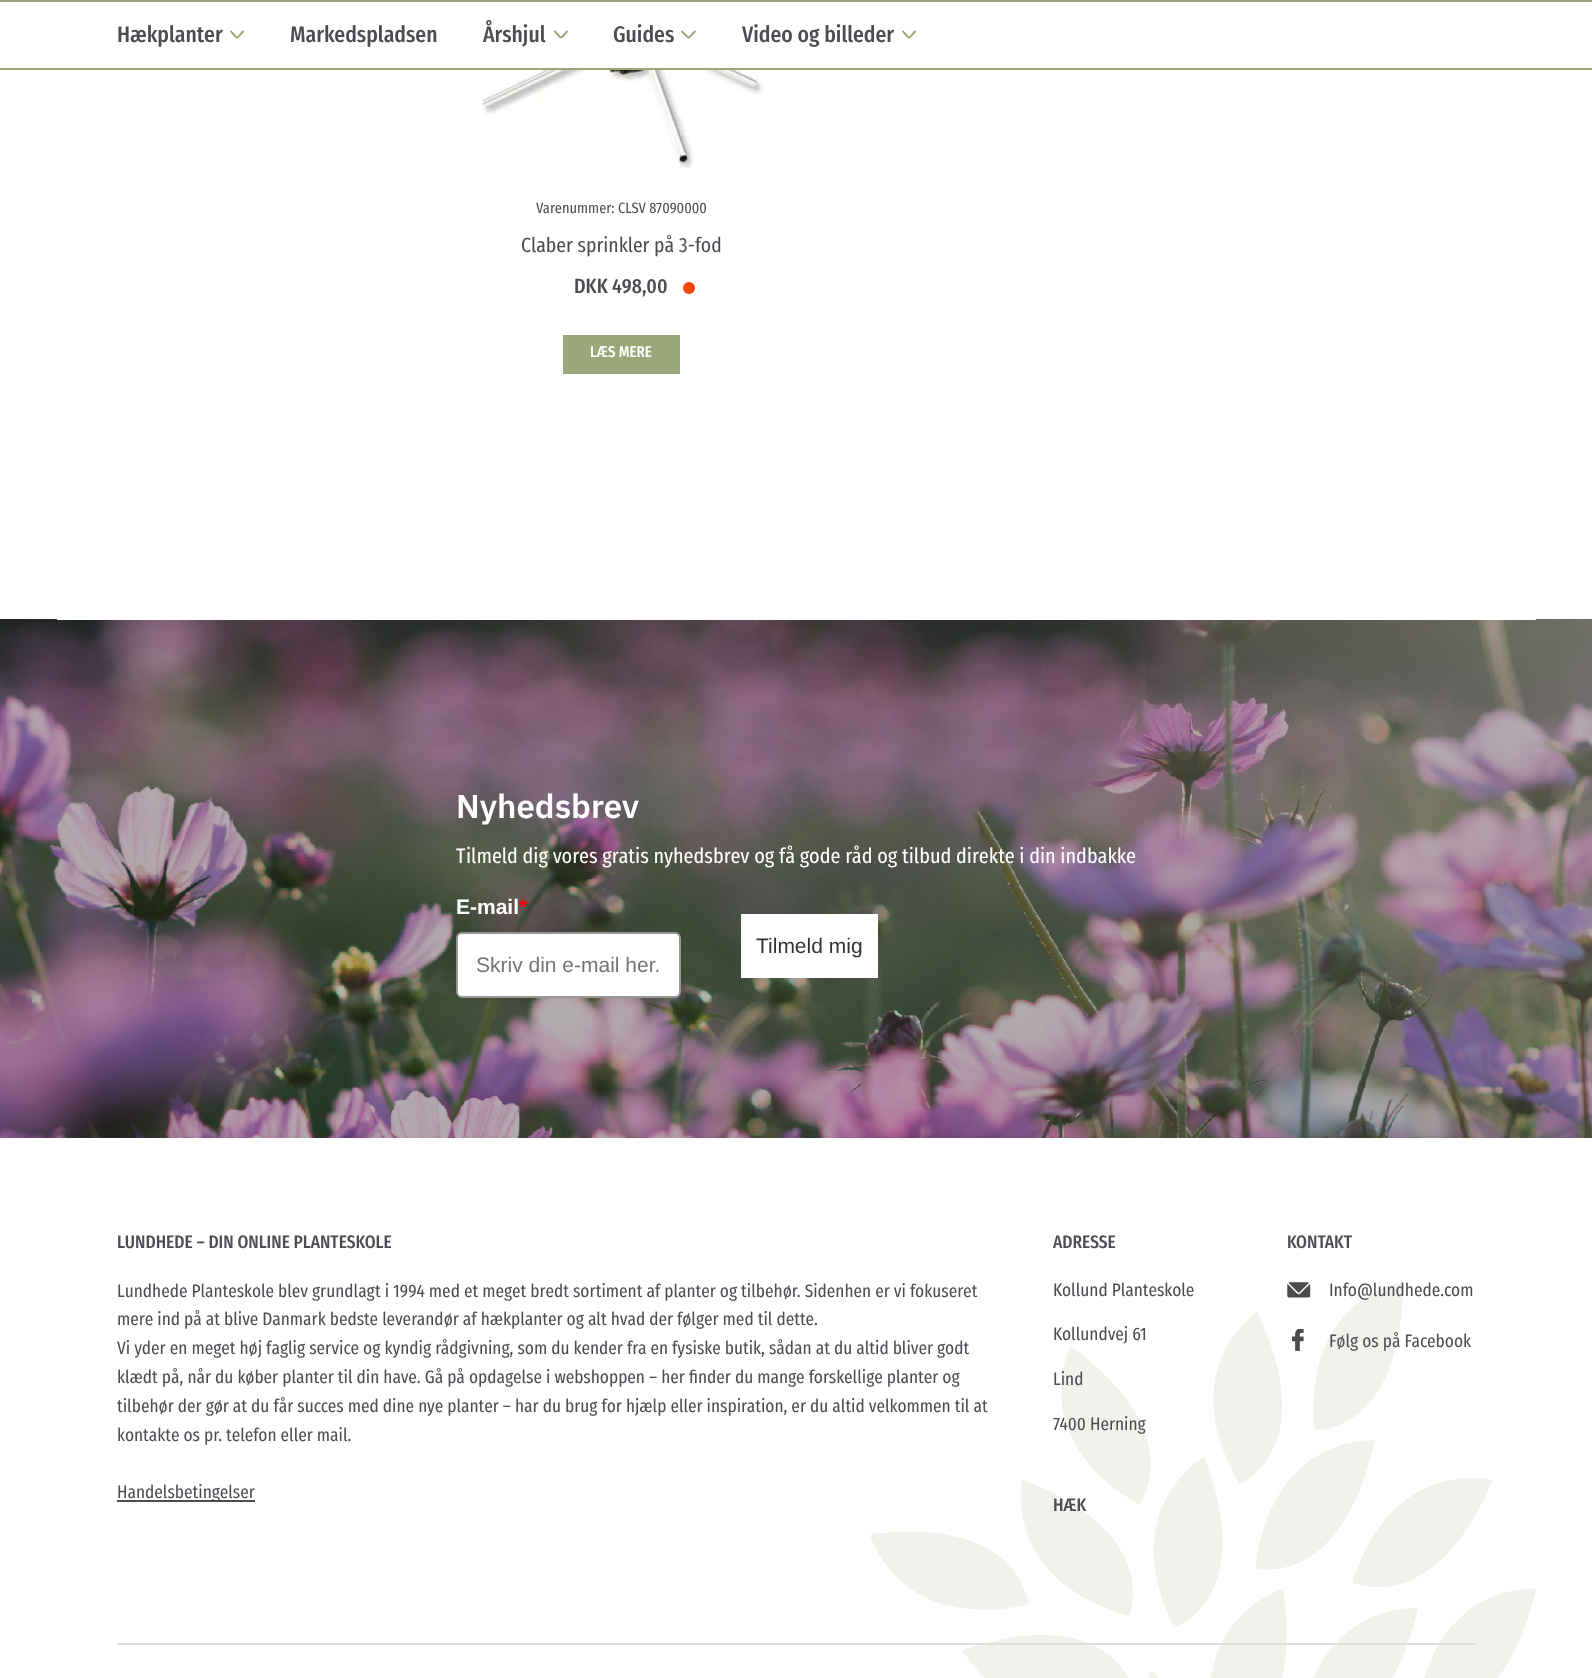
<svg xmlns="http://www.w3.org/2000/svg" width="1592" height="1678">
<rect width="100%" height="100%" fill="#fff"/>
<rect width="1592" height="2" fill="#9aa879"/>
<rect y="68" width="1592" height="2" fill="#9aa879"/>
<text x="117" y="42" style="font-family:Fira Sans Condensed;font-size:22.5px;font-weight:500;fill:#4c4d53">Hækplanter</text>
<path d="M243 31.5l-4.5 5c-1.5 1.5-1.5 1.5-3 0l-4.5-5" fill="none" stroke="#9aa879" stroke-width="1.9" stroke-linecap="round" stroke-linejoin="round"/>
<text x="290" y="42" style="font-family:Fira Sans Condensed;font-size:22.5px;font-weight:500;fill:#4c4d53">Markedspladsen</text>
<text x="483" y="42" style="font-family:Fira Sans Condensed;font-size:22.5px;font-weight:500;fill:#4c4d53">Årshjul</text>
<path d="M567 31.5l-4.5 5c-1.5 1.5-1.5 1.5-3 0l-4.5-5" fill="none" stroke="#9aa879" stroke-width="1.9" stroke-linecap="round" stroke-linejoin="round"/>
<text x="613" y="42" style="font-family:Fira Sans Condensed;font-size:22.5px;font-weight:500;fill:#4c4d53">Guides</text>
<path d="M695 31.5l-5 5c-1.5 1.5-1.5 1.5-3 0l-5-5" fill="none" stroke="#9aa879" stroke-width="1.9" stroke-linecap="round" stroke-linejoin="round"/>
<text x="742" y="42" style="font-family:Fira Sans Condensed;font-size:22.5px;font-weight:500;fill:#4c4d53">Video og billeder</text>
<path d="M915 31.5l-4.5 5c-1.5 1.5-1.5 1.5-3 0l-4.5-5" fill="none" stroke="#9aa879" stroke-width="1.9" stroke-linecap="round" stroke-linejoin="round"/>
<image x="0" y="619" width="1592" height="519" href="media/2.png"/>
<rect x="57" y="619" width="1479" height="1" fill="#fff"/>
<image x="482" y="70" width="283" height="99" href="media/1.png"/>
<text x="536" y="213" style="font-family:Fira Sans Condensed;font-size:15px;fill:#4c4d53">Varenummer: CLSV 87090000</text>
<text x="521" y="252" style="font-family:Fira Sans Condensed;font-size:20.5px;fill:#4c4d53">Claber sprinkler på 3-fod</text>
<text x="574" y="293" style="font-family:Fira Sans Condensed;font-size:20.5px;font-weight:500;fill:#4c4d53">DKK 498,00</text>
<circle cx="689" cy="288" r="6" fill="#f04800"/>
<rect x="563" y="335" width="117" height="39" fill="#9aa879"/>
<text x="590" y="357" style="font-family:Fira Sans Condensed;font-size:15.5px;font-weight:500;fill:#fff">LÆS MERE</text>
<text x="456" y="818" style="font-family:IBM Plex Sans;font-size:33px;font-weight:600;fill:#fff">Nyhedsbrev</text>
<text x="456" y="863" style="font-family:Fira Sans Condensed;font-size:21px;fill:#fff">Tilmeld dig vores gratis nyhedsbrev og få gode råd og tilbud direkte i din indbakke</text>
<text x="456" y="914" style="font-family:Liberation Sans;font-size:21px;font-weight:bold;fill:#fff">E-mail</text>
<text x="519" y="914" style="font-family:Liberation Sans;font-size:21px;font-weight:bold;fill:#f00">*</text>
<rect x="457" y="933" width="223" height="64" rx="5" fill="#fff" stroke="#979797" stroke-width="2"/>
<text x="476" y="972" style="font-family:Liberation Sans;font-size:21px;fill:#757575">Skriv din e-mail her.</text>
<rect x="741" y="914" width="137" height="64" fill="#fff"/>
<text x="756" y="953" style="font-family:Liberation Sans;font-size:21px;fill:#333">Tilmeld mig</text>
<image x="870" y="1282" width="666" height="396" href="media/3.png"/>
<text x="117" y="1248" style="font-family:Fira Sans Condensed;font-size:18px;font-weight:500;fill:#4c4d53">LUNDHEDE – DIN ONLINE PLANTESKOLE</text>
<text x="117" y="1297" style="font-family:Fira Sans Condensed;font-size:18px;fill:#4c4d53">Lundhede Planteskole blev grundlagt i 1994 med et meget bredt sortiment af planter og tilbehør. Sidenhen er vi fokuseret</text>
<text x="117" y="1325" style="font-family:Fira Sans Condensed;font-size:18px;fill:#4c4d53">mere ind på at blive Danmark bedste leverandør af hækplanter og alt hvad der følger med til dette.</text>
<text x="117" y="1354" style="font-family:Fira Sans Condensed;font-size:18px;fill:#4c4d53">Vi yder en meget høj faglig service og kyndig rådgivning, som du kender fra en fysiske butik, sådan at du altid bliver godt</text>
<text x="117" y="1383" style="font-family:Fira Sans Condensed;font-size:18px;fill:#4c4d53">klædt på, når du køber planter til din have. Gå på opdagelse i webshoppen – her finder du mange forskellige planter og</text>
<text x="117" y="1412" style="font-family:Fira Sans Condensed;font-size:18px;fill:#4c4d53">tilbehør der gør at du får succes med dine nye planter – har du brug for hjælp eller inspiration, er du altid velkommen til at</text>
<text x="117" y="1441" style="font-family:Fira Sans Condensed;font-size:18px;fill:#4c4d53">kontakte os pr. telefon eller mail.</text>
<rect x="117" y="1500" width="138" height="2" fill="#4b4c4e"/>
<text x="117" y="1498" style="font-family:Fira Sans Condensed;font-size:18px;fill:#4c4d53">Handelsbetingelser</text>
<text x="1053" y="1248" style="font-family:Fira Sans Condensed;font-size:18px;font-weight:500;fill:#4c4d53">ADRESSE</text>
<text x="1053" y="1296" style="font-family:Fira Sans Condensed;font-size:18px;fill:#4c4d53">Kollund Planteskole</text>
<text x="1053" y="1340" style="font-family:Fira Sans Condensed;font-size:18px;fill:#4c4d53">Kollundvej 61</text>
<text x="1053" y="1385" style="font-family:Fira Sans Condensed;font-size:18px;fill:#4c4d53">Lind</text>
<text x="1053" y="1430" style="font-family:Fira Sans Condensed;font-size:18px;fill:#4c4d53">7400 Herning</text>
<text x="1287" y="1248" style="font-family:Fira Sans Condensed;font-size:18px;font-weight:500;fill:#4c4d53">KONTAKT</text>
<image x="1287" y="1282" width="24" height="16" href="media/4.png"/>
<text x="1329" y="1296" style="font-family:Fira Sans Condensed;font-size:18px;fill:#4c4d53">Info@lundhede.com</text>
<image x="1292" y="1329" width="12" height="22" href="media/5.png"/>
<text x="1329" y="1347" style="font-family:Fira Sans Condensed;font-size:18px;fill:#4c4d53">Følg os på Facebook</text>
<text x="1053" y="1511" style="font-family:Fira Sans Condensed;font-size:18px;font-weight:500;fill:#4c4d53">HÆK</text>
<rect x="117" y="1643" width="1359" height="2" fill="#ddd"/>
</svg>
